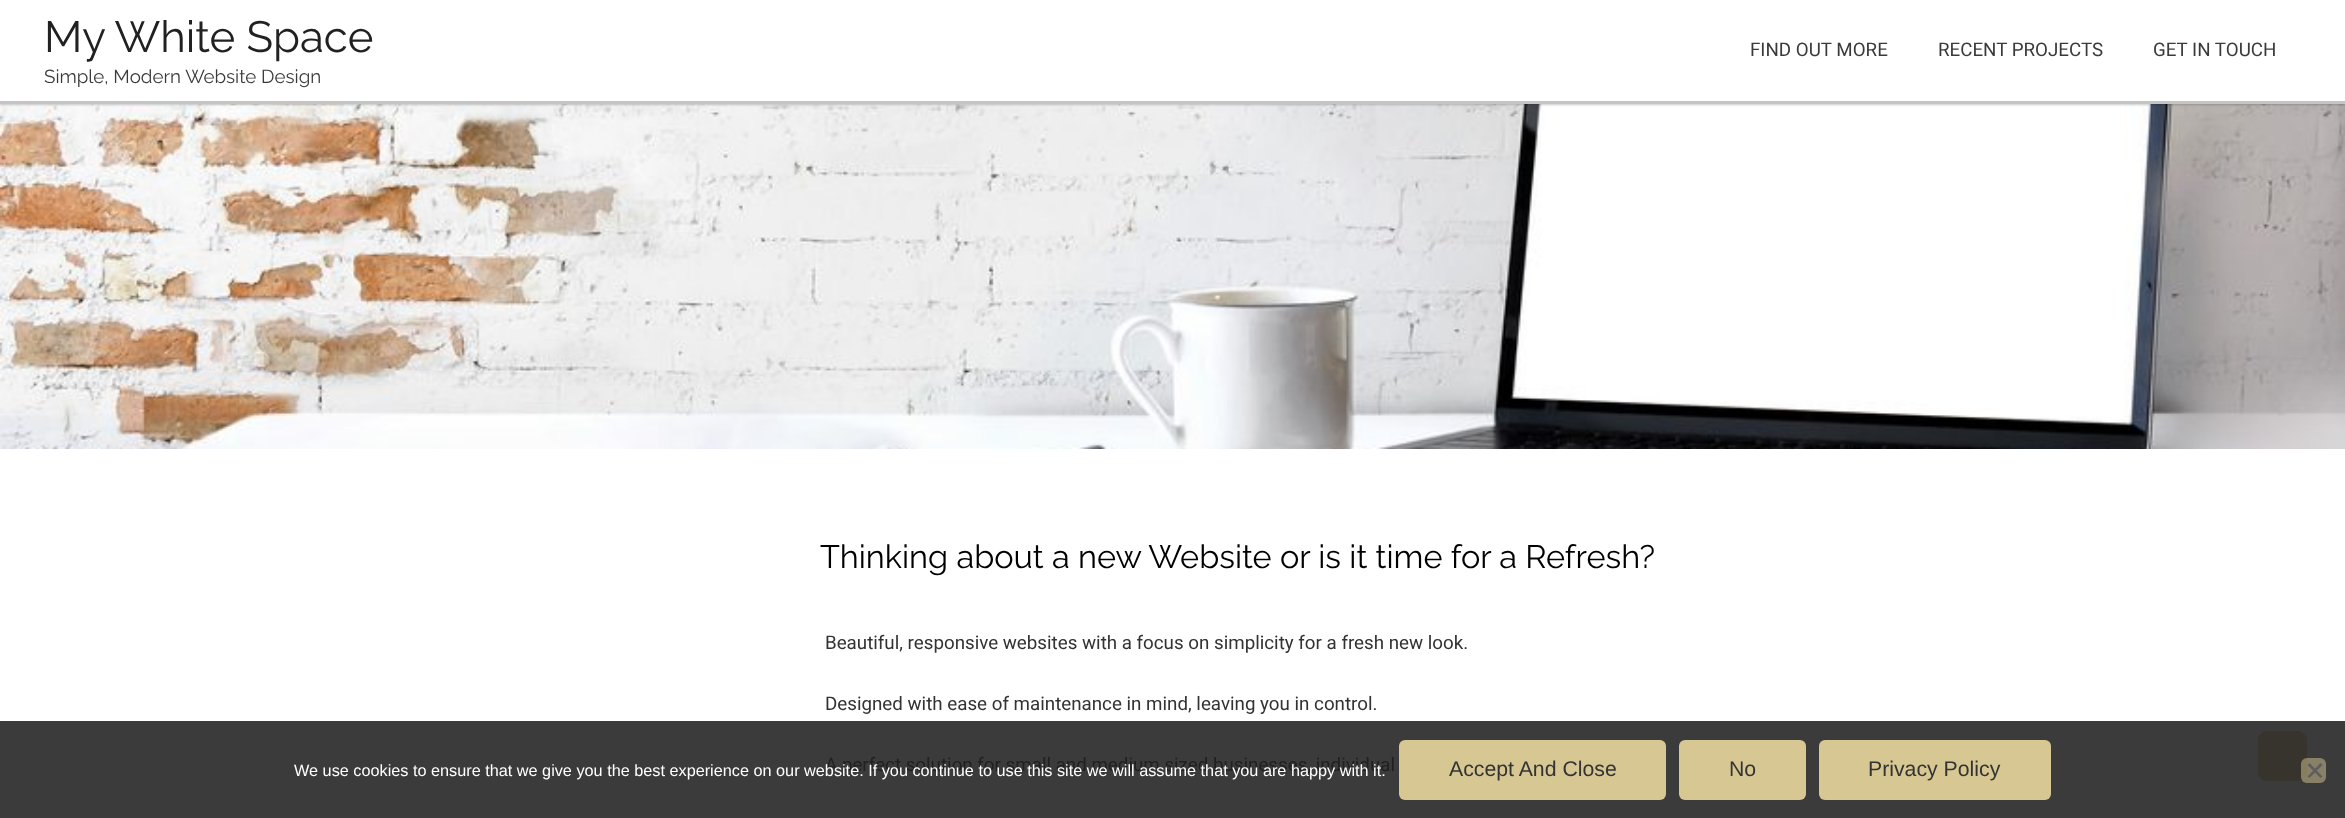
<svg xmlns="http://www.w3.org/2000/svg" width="2345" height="818">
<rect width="100%" height="100%" fill="#fff"/>
<rect y="721" width="2345" height="97" fill="#3b3b3b"/>
<image x="0" y="104" width="2345" height="345" href="media/1.png"/>
<rect y="1" width="2345" height="104" fill="#00000033" filter="blur(1px)"/>
<rect width="2345" height="101" fill="#fff"/>
<rect y="101" width="2345" height="3" fill="#c4c4c4"/>
<text x="44" y="52" style="font-family:Raleway;font-size:43.75px;fill:#212121">My White Space</text>
<text x="44" y="83" style="font-family:Raleway;font-size:18.75px;fill:#3a3a3a">Simple, Modern Website Design</text>
<text x="1750" y="56" style="font-family:Roboto;font-size:18.75px;fill:#3a3a3a">FIND OUT MORE</text>
<text x="1938" y="56" style="font-family:Roboto;font-size:18.75px;fill:#3a3a3a">RECENT PROJECTS</text>
<text x="2153" y="56" style="font-family:Roboto;font-size:18.75px;fill:#3a3a3a">GET IN TOUCH</text>
<text x="820" y="568" style="font-family:Raleway;font-size:32.5px;fill:#000">Thinking about a new Website or is it time for a Refresh?</text>
<text x="825" y="649" style="font-family:Roboto;font-size:18.75px;fill:#333">Beautiful, responsive websites with a focus on simplicity for a fresh new look.</text>
<text x="825" y="710" style="font-family:Roboto;font-size:18.75px;fill:#333">Designed with ease of maintenance in mind, leaving you in control.</text>
<text x="825" y="771" style="font-family:Roboto;font-size:18.75px;fill:#212121">A perfect solution for small and medium sized businesses, individual</text>
<path d="M2297 781h-29c-6 0-10-4-10-10v-30c0-5 4-10 10-10h29c6 0 10 5 10 10v30c0 6-4 10-10 10z" fill="#36342d"/>
<text x="294" y="776" style="font-family:Liberation Sans;font-size:16.25px;fill:#fff">We use cookies to ensure that we give you the best experience on our website. If you continue to use this site we will assume that you are happy with it.</text>
<rect x="1399" y="740" width="267" height="60" rx="6" fill="#d7c793"/>
<text x="1449" y="776" style="font-family:Liberation Sans;font-size:21.25px;fill:#333">Accept And Close</text>
<rect x="1679" y="740" width="127" height="60" rx="6" fill="#d7c793"/>
<text x="1729" y="776" style="font-family:Liberation Sans;font-size:21.25px;fill:#333">No</text>
<rect x="1819" y="740" width="232" height="60" rx="6" fill="#d7c793"/>
<text x="1868" y="776" style="font-family:Liberation Sans;font-size:21.25px;fill:#333">Privacy Policy</text>
<rect x="2301" y="758" width="25" height="25" rx="6" fill="#d7c79380"/>
<path d="M2320.5 763l2 2l-13 13l-2-1.5z" fill="#5e5e5e"/>
<path d="M2307.5 765l2-2l13 13.5l-2 1.5z" fill="#5e5e5e"/>
</svg>
